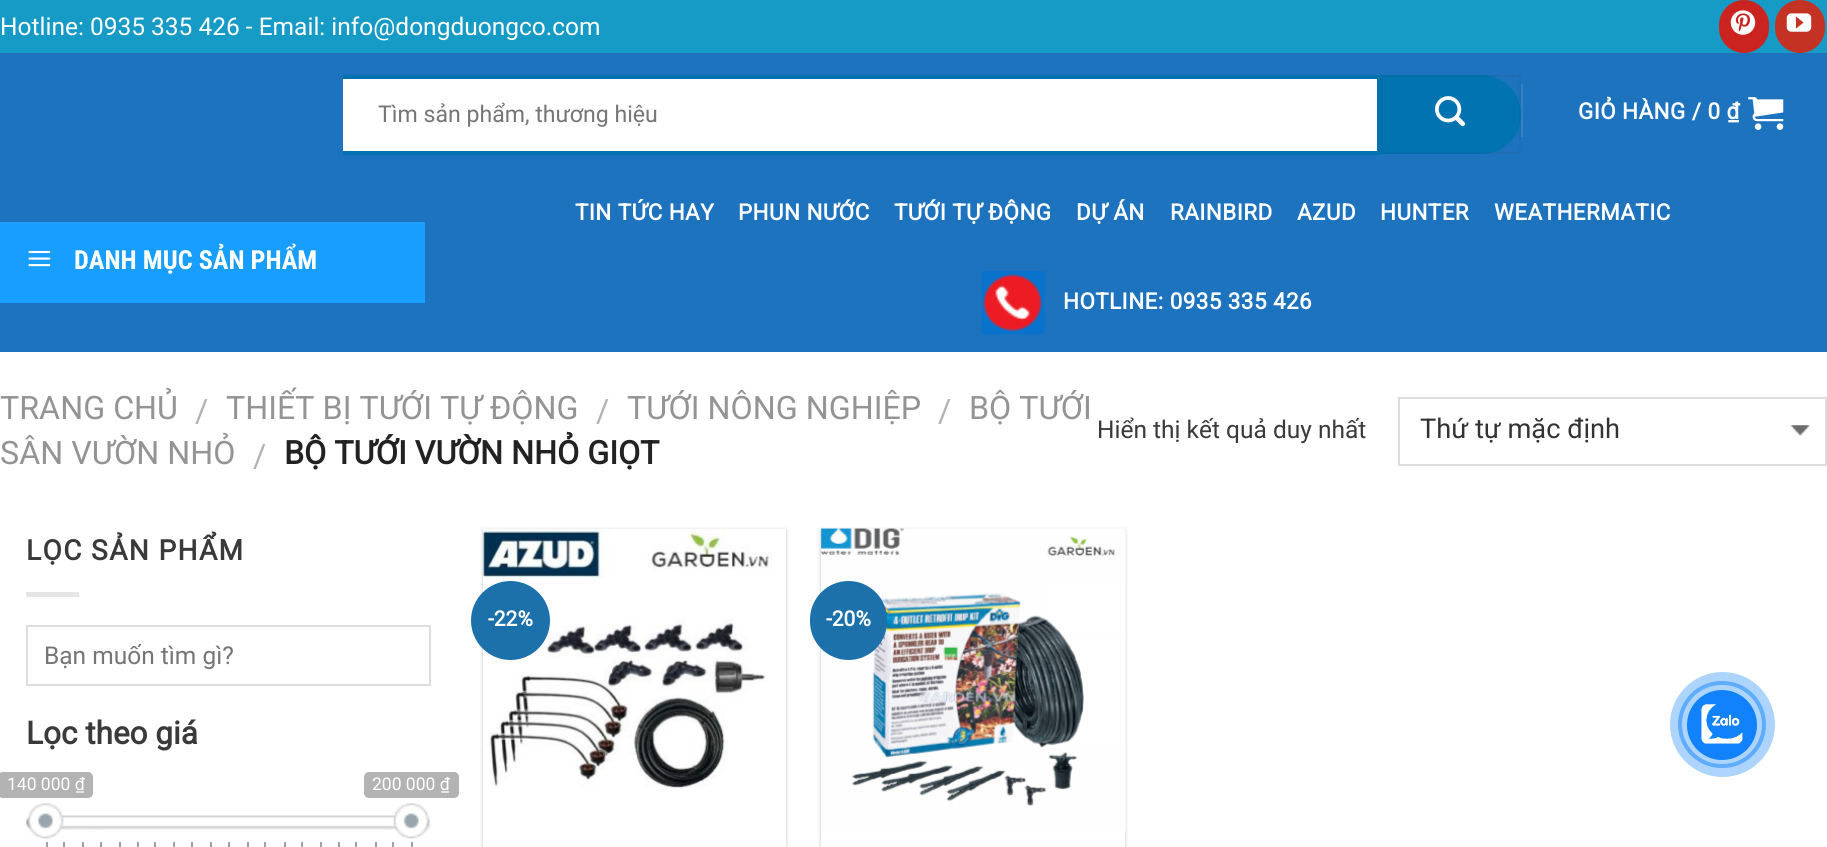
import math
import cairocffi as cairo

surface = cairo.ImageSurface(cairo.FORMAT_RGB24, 1827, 847)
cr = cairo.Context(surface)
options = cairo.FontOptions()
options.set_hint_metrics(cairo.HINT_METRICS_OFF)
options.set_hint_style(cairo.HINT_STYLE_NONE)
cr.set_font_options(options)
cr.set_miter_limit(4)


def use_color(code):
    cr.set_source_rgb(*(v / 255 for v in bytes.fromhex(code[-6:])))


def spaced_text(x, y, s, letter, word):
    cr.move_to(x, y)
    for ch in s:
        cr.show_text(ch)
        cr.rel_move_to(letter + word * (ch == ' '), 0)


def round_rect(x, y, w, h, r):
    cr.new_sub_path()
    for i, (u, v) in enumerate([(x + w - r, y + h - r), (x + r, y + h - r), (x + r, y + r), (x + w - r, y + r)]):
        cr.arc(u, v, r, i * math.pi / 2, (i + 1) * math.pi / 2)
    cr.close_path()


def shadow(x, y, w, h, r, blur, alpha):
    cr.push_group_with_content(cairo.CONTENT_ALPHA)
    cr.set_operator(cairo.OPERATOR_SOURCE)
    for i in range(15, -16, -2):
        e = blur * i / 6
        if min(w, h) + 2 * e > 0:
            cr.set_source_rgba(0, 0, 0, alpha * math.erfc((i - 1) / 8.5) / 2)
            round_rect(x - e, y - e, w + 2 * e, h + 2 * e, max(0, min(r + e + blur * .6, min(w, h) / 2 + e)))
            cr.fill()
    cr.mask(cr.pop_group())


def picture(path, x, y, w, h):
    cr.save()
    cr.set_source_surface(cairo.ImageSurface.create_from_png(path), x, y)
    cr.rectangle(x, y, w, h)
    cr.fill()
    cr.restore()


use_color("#ffffff")
cr.paint()
use_color("#1e73be")
cr.rectangle(0, 53, 1827, 299)
cr.fill()
use_color("#169ac6")
cr.rectangle(0, 0, 1827, 53)
cr.fill()
cr.select_font_face("Roboto")
cr.set_font_size(24.5)
use_color("#ffffff")
cr.move_to(0, 35)
cr.show_text("Hotline: 0935 335 426 - Email: info@dongduongco.com")
use_color("#cb2320")
round_rect(1720, 1, 48, 51, 24)
cr.fill_preserve()
cr.stroke()
picture("img1.png", 1730, 10, 26, 25)
use_color("#c33223")
round_rect(1776, 1, 48, 51, 24)
cr.fill_preserve()
cr.stroke()
picture("img2.png", 1786, 13, 26, 19)
use_color("#ffffff")
cr.rectangle(343, 79, 1034, 72)
cr.fill()
use_color("#0173b1")
cr.rectangle(343, 75, 1038, 4)
cr.fill()
cr.rectangle(1377, 75, 4, 79)
cr.fill()
cr.rectangle(343, 151, 1038, 4)
cr.fill()
cr.set_font_size(23.1)
use_color("#757575")
cr.move_to(378, 122)
cr.show_text("Tìm sản phẩm, thương hiệu")
use_color("#0173b1")
cr.new_path()
cr.move_to(1381, 75)
cr.line_to(1481.5, 75)
cr.curve_to(1503.5, 75, 1521, 92.5, 1521, 114.5)
cr.curve_to(1521, 136.5, 1503.5, 154, 1481.5, 154)
cr.line_to(1381, 154)
cr.close_path()
cr.fill()
cr.rectangle(1382, 76, 138, 77)
cr.set_source_rgba(0, 0, 0, 0.05)
cr.stroke()
picture("img3.png", 1435, 96, 30, 31)
use_color("#3581c5")
cr.rectangle(1521, 84, 2, 53)
cr.fill()
cr.select_font_face("Roboto", cairo.FONT_SLANT_NORMAL, cairo.FONT_WEIGHT_BOLD)
cr.set_font_size(22.4)
use_color("#ffffff")
spaced_text(1578, 119, "GIỎ HÀNG / 0 ₫", 0.45, 0)
picture("img4.png", 1748, 97, 36, 33)
use_color("#189eff")
cr.rectangle(0, 222, 425, 81)
cr.fill()
picture("img5.png", 28, 250, 23, 17)
cr.select_font_face("Roboto Condensed", cairo.FONT_SLANT_NORMAL, cairo.FONT_WEIGHT_BOLD)
cr.set_font_size(26.25)
use_color("#ffffff")
cr.move_to(74, 269)
cr.show_text("DANH MỤC SẢN PHẨM")
cr.select_font_face("Roboto", cairo.FONT_SLANT_NORMAL, cairo.FONT_WEIGHT_BOLD)
cr.set_font_size(22.4)
spaced_text(575, 220, "TIN TỨC HAY", 0.45, 0)
spaced_text(738, 220, "PHUN NƯỚC", 0.45, 0)
spaced_text(894, 220, "TƯỚI TỰ ĐỘNG", 0.45, 0)
spaced_text(1076, 220, "DỰ ÁN", 0.45, 0)
spaced_text(1170, 220, "RAINBIRD", 0.45, 0)
spaced_text(1297, 220, "AZUD", 0.45, 0)
spaced_text(1380, 220, "HUNTER", 0.45, 0)
spaced_text(1494, 220, "WEATHERMATIC", 0.45, 0)
picture("img6.png", 981, 271, 64, 64)
spaced_text(1063, 309, "HOTLINE: 0935 335 426", 0.45, 0)
cr.select_font_face("Roboto")
cr.set_font_size(32.25)
use_color("#949494")
cr.move_to(0, 419)
cr.show_text("TRANG CHỦ")
use_color("#b2b2b2")
cr.move_to(195, 422)
cr.show_text("/")
use_color("#949494")
cr.move_to(226, 419)
cr.show_text("THIẾT BỊ TƯỚI TỰ ĐỘNG")
use_color("#b2b2b2")
cr.move_to(596, 422)
cr.show_text("/")
use_color("#949494")
cr.move_to(627, 419)
cr.show_text("TƯỚI NÔNG NGHIỆP")
use_color("#b2b2b2")
cr.move_to(938, 422)
cr.show_text("/")
use_color("#949494")
cr.move_to(969, 419)
cr.show_text("BỘ TƯỚI")
cr.move_to(0, 464)
cr.show_text("SÂN VƯỜN NHỎ")
use_color("#b2b2b2")
cr.move_to(253, 467)
cr.show_text("/")
cr.select_font_face("Roboto", cairo.FONT_SLANT_NORMAL, cairo.FONT_WEIGHT_BOLD)
use_color("#222222")
cr.move_to(284, 464)
cr.show_text("BỘ TƯỚI VƯỜN NHỎ GIỌT")
cr.select_font_face("Roboto")
cr.set_font_size(24.5)
use_color("#3a3a3a")
cr.move_to(1097, 438)
cr.show_text("Hiển thị kết quả duy nhất")
picture("img7.png", 1790, 425, 20, 11)
cr.rectangle(1399, 398, 427, 67)
use_color("#dddddd")
cr.stroke()
cr.set_font_size(27.25)
use_color("#333333")
cr.move_to(1420, 438)
cr.show_text("Thứ tự mặc định")
cr.select_font_face("Roboto", cairo.FONT_SLANT_NORMAL, cairo.FONT_WEIGHT_BOLD)
cr.set_font_size(28)
use_color("#3a3a3a")
spaced_text(26, 560, "LỌC SẢN PHẨM", 1.4, 0)
use_color("#e6e6e6")
cr.rectangle(26, 592, 53, 5)
cr.fill()
cr.rectangle(27, 626, 403, 59)
use_color("#dddddd")
cr.stroke()
cr.select_font_face("Roboto")
cr.set_font_size(24.5)
use_color("#757575")
cr.move_to(44, 664)
cr.show_text("Bạn muốn tìm gì?")
cr.select_font_face("Roboto", cairo.FONT_SLANT_NORMAL, cairo.FONT_WEIGHT_BOLD)
cr.set_font_size(31.5)
use_color("#3a3a3a")
cr.move_to(26, 744)
cr.show_text("Lọc theo giá")
use_color("#b3b3b3")
round_rect(-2, 772, 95, 26, 5)
cr.fill()
cr.select_font_face("Roboto")
cr.set_font_size(17.5)
use_color("#ffffff")
cr.move_to(7, 790)
cr.show_text("140 000 ₫")
use_color("#b3b3b3")
round_rect(364, 772, 95, 26, 5)
cr.fill()
use_color("#ffffff")
cr.move_to(372, 790)
cr.show_text("200 000 ₫")
picture("img8.png", 26, 816, 44, 14)
picture("img9.png", 63, 827, 331, 3)
picture("img10.png", 386, 816, 45, 14)
picture("img12.png", 47, 815, 363, 15)
picture("img11.png", 27, 803, 37, 36)
picture("img13.png", 393, 803, 37, 36)
use_color("#99a4ac")
cr.rectangle(46, 842, 2, 5)
cr.fill()
cr.rectangle(63, 842, 2, 5)
cr.fill()
cr.rectangle(82, 842, 2, 5)
cr.fill()
cr.rectangle(100, 842, 2, 5)
cr.fill()
cr.rectangle(119, 842, 2, 5)
cr.fill()
cr.rectangle(137, 842, 2, 5)
cr.fill()
cr.rectangle(154, 842, 2, 5)
cr.fill()
cr.rectangle(173, 842, 2, 5)
cr.fill()
cr.rectangle(191, 842, 2, 5)
cr.fill()
cr.rectangle(210, 842, 2, 5)
cr.fill()
cr.rectangle(228, 842, 2, 5)
cr.fill()
cr.rectangle(247, 842, 2, 5)
cr.fill()
cr.rectangle(264, 842, 2, 5)
cr.fill()
cr.rectangle(284, 842, 2, 5)
cr.fill()
cr.rectangle(301, 842, 2, 5)
cr.fill()
cr.rectangle(320, 842, 2, 5)
cr.fill()
cr.rectangle(338, 842, 2, 5)
cr.fill()
cr.rectangle(355, 842, 2, 5)
cr.fill()
cr.rectangle(375, 842, 2, 5)
cr.fill()
cr.rectangle(392, 842, 2, 5)
cr.fill()
cr.rectangle(411, 842, 2, 5)
cr.fill()
use_color("#000000")
shadow(483, 530, 303, 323, 0, 2, 0.24)
use_color("#ffffff")
cr.rectangle(483, 529, 303, 318)
cr.fill()
picture("img14.png", 483, 529, 289, 260)
use_color("#1d71ab")
cr.arc(510.5, 620.5, 39.5, 0, 2 * math.pi)
cr.fill()
cr.select_font_face("Roboto", cairo.FONT_SLANT_NORMAL, cairo.FONT_WEIGHT_BOLD)
cr.set_font_size(21)
use_color("#ffffff")
cr.move_to(488, 626)
cr.show_text("-22%")
cr.save()
cr.set_fill_rule(cairo.FILL_RULE_EVEN_ODD)
cr.new_path()
cr.move_to(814, 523)
cr.line_to(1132, 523)
cr.line_to(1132, 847)
cr.line_to(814, 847)
cr.close_path()
cr.move_to(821, 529)
cr.line_to(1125, 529)
cr.line_to(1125, 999)
cr.line_to(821, 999)
cr.close_path()
cr.clip()
use_color("#000000")
shadow(821, 530, 304, 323, 0, 2, 0.24)
cr.restore()
picture("img15.png", 821, 528, 305, 303)
use_color("#1d71ab")
round_rect(810, 581, 77, 79, 38.5)
cr.fill()
use_color("#ffffff")
cr.move_to(826, 626)
cr.show_text("-20%")
round_rect(1680, 683, 84, 83, 41.5)
use_color("#88c1fe")
cr.set_line_width(4)
cr.stroke()
cr.set_source_rgba(0.067, 0.51, 0.988, 0.34)
cr.arc(1722.5, 724.5, 52.5, 0, 2 * math.pi)
cr.fill()
use_color("#1182fc")
cr.arc(1722, 725, 35, 0, 2 * math.pi)
cr.fill()
picture("img16.png", 1701, 704, 42, 40)
surface.write_to_png("result.png")
